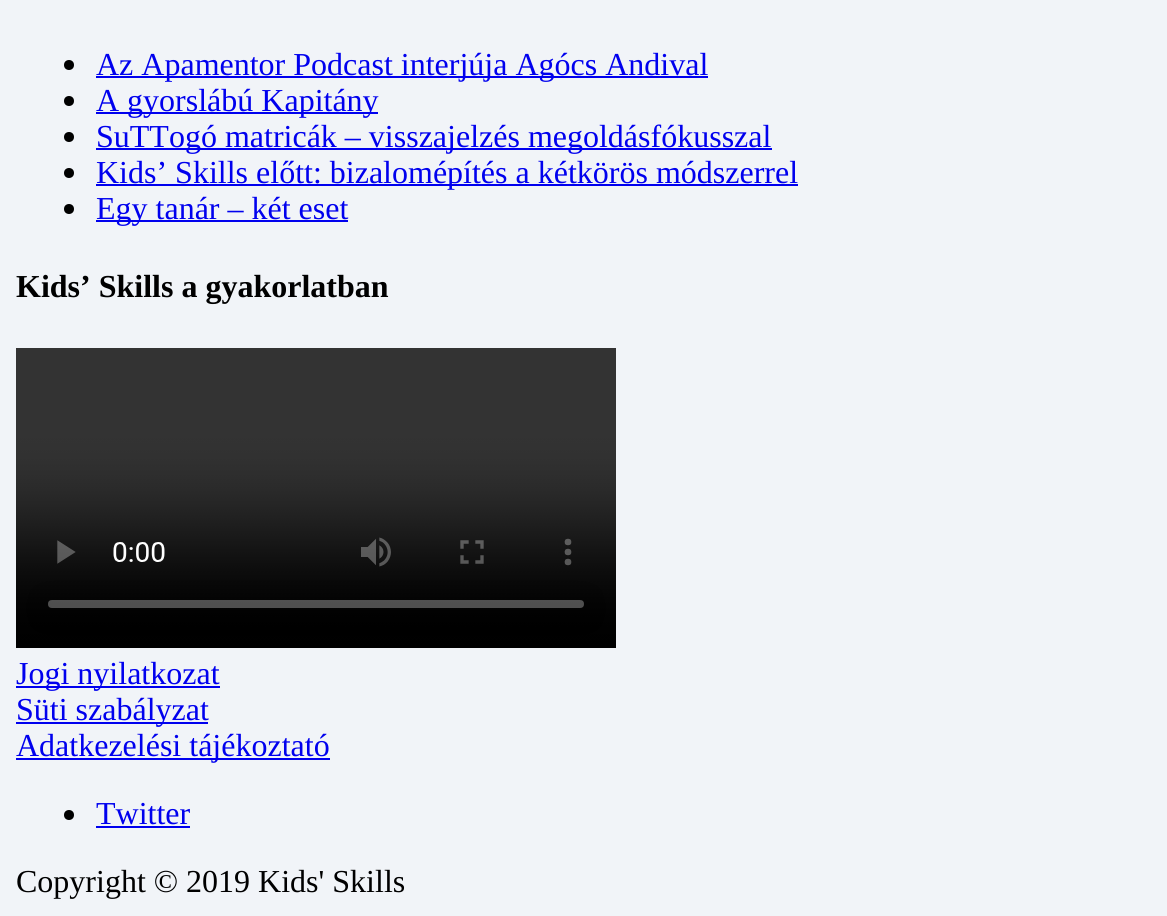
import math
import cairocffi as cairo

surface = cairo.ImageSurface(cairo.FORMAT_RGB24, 1167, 916)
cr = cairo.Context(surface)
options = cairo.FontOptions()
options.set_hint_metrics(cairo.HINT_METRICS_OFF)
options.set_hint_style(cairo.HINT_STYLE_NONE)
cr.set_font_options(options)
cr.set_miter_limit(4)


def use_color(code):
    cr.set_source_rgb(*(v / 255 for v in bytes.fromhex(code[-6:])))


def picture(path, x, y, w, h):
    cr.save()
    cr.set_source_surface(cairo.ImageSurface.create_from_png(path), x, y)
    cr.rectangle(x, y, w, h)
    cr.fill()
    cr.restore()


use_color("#f1f4f8")
cr.paint()
use_color("#000000")
cr.arc(69, 65, 5, 0, 2 * math.pi)
cr.fill()
use_color("#0000ee")
cr.rectangle(96, 76, 612, 2)
cr.fill()
cr.select_font_face("Liberation Serif")
cr.set_font_size(32)
cr.move_to(96, 75)
cr.show_text("Az Apamentor Podcast interjúja Agócs Andival")
use_color("#000000")
cr.new_path()
cr.arc(69, 101, 5, 0, 2 * math.pi)
cr.fill()
use_color("#0000ee")
cr.rectangle(96, 112, 282, 2)
cr.fill()
cr.move_to(96, 111)
cr.show_text("A gyorslábú Kapitány")
use_color("#000000")
cr.new_path()
cr.arc(69, 137, 5, 0, 2 * math.pi)
cr.fill()
use_color("#0000ee")
cr.rectangle(96, 148, 676, 2)
cr.fill()
cr.move_to(96, 147)
cr.show_text("SuTTogó matricák – visszajelzés megoldásfókusszal")
use_color("#000000")
cr.new_path()
cr.arc(69, 173, 5, 0, 2 * math.pi)
cr.fill()
use_color("#0000ee")
cr.rectangle(96, 184, 702, 2)
cr.fill()
cr.move_to(96, 183)
cr.show_text("Kids’ Skills előtt: bizalomépítés a kétkörös módszerrel")
use_color("#000000")
cr.new_path()
cr.arc(69, 209, 5, 0, 2 * math.pi)
cr.fill()
use_color("#0000ee")
cr.rectangle(96, 220, 252, 2)
cr.fill()
cr.move_to(96, 219)
cr.show_text("Egy tanár – két eset")
cr.select_font_face("Liberation Serif", cairo.FONT_SLANT_NORMAL, cairo.FONT_WEIGHT_BOLD)
use_color("#000000")
cr.move_to(16, 297)
cr.show_text("Kids’ Skills a gyakorlatban")
picture("img1.png", 16, 348, 600, 300)
use_color("#0000ee")
cr.rectangle(16, 686, 204, 2)
cr.fill()
cr.select_font_face("Liberation Serif")
cr.move_to(16, 684)
cr.show_text("Jogi nyilatkozat")
cr.rectangle(16, 722, 192, 2)
cr.fill()
cr.move_to(16, 720)
cr.show_text("Süti szabályzat")
cr.rectangle(16, 758, 314, 2)
cr.fill()
cr.move_to(16, 756)
cr.show_text("Adatkezelési tájékoztató")
use_color("#000000")
cr.new_path()
cr.arc(69, 815, 5, 0, 2 * math.pi)
cr.fill()
use_color("#0000ee")
cr.move_to(96, 824)
cr.show_text("Twitter")
cr.rectangle(96, 826, 94, 2)
cr.fill()
use_color("#000000")
cr.move_to(16, 892)
cr.show_text("Copyright © 2019 Kids' Skills")
surface.write_to_png("result.png")
